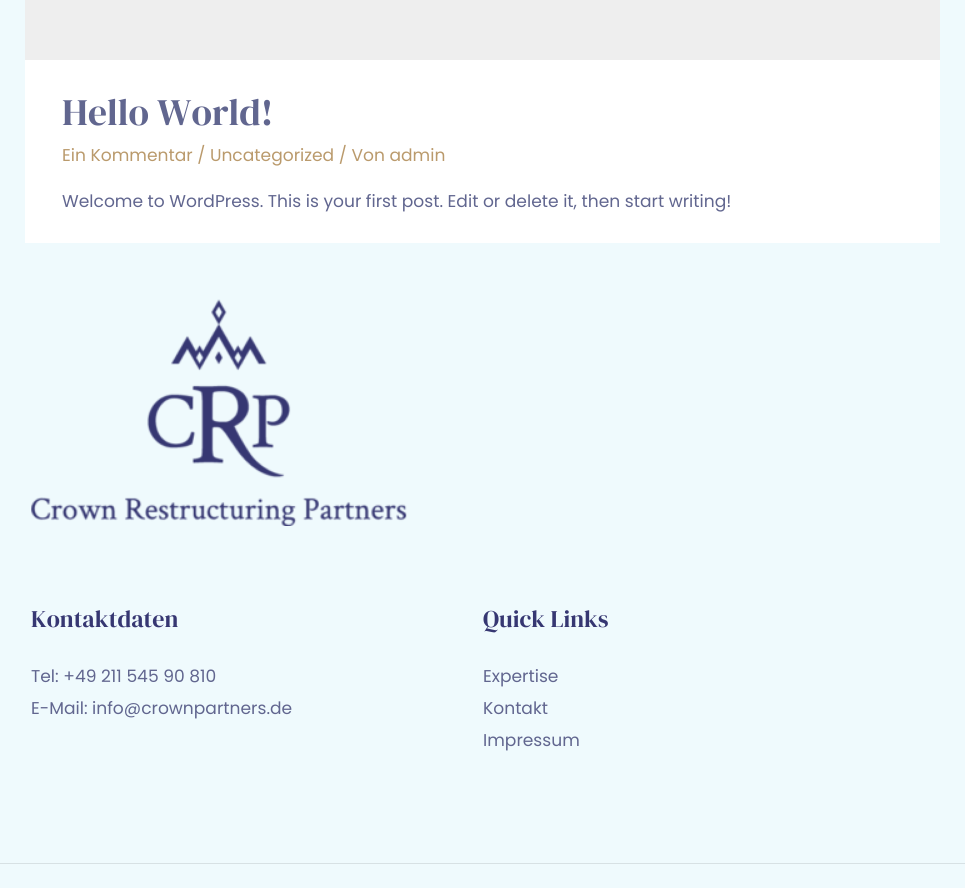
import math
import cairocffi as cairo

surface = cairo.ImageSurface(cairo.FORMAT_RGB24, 965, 888)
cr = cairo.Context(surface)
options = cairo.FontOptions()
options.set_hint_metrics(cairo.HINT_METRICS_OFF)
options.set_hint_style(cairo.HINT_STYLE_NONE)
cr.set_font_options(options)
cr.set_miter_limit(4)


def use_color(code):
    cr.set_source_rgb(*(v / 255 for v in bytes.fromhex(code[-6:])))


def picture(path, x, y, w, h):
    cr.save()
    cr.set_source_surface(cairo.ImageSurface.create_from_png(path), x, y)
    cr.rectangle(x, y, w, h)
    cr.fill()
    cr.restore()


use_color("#effafd")
cr.paint()
use_color("#eeeeee")
cr.rectangle(25, 0, 915, 60)
cr.fill()
use_color("#ffffff")
cr.rectangle(25, 60, 915, 183)
cr.fill()
cr.select_font_face("DM Serif Display")
cr.set_font_size(37.5)
use_color("#61668f")
cr.move_to(62, 125)
cr.show_text("Hello World!")
cr.select_font_face("Poppins")
cr.set_font_size(17.1)
use_color("#ba9a6c")
cr.move_to(62, 161)
cr.show_text("Ein Kommentar / Uncategorized / Von admin")
use_color("#61668f")
cr.move_to(62, 207)
cr.show_text("Welcome to WordPress. This is your first post. Edit or delete it, then start writing!")
picture("img1.png", 31, 299, 376, 227)
cr.select_font_face("DM Serif Display")
cr.set_font_size(24)
use_color("#363772")
cr.move_to(31, 627)
cr.show_text("Kontaktdaten")
cr.select_font_face("Poppins")
cr.set_font_size(17.1)
use_color("#61668f")
cr.move_to(31, 682)
cr.show_text("Tel: +49 211 545 90 810")
cr.move_to(31, 714)
cr.show_text("E-Mail: info@crownpartners.de")
cr.select_font_face("DM Serif Display")
cr.set_font_size(24)
use_color("#363772")
cr.move_to(483, 627)
cr.show_text("Quick Links")
cr.select_font_face("Poppins")
cr.set_font_size(17.1)
use_color("#61668f")
cr.move_to(483, 682)
cr.show_text("Expertise")
cr.move_to(483, 714)
cr.show_text("Kontakt")
cr.move_to(483, 746)
cr.show_text("Impressum")
use_color("#d7e1e4")
cr.rectangle(0, 863, 965, 1)
cr.fill()
surface.write_to_png("result.png")
